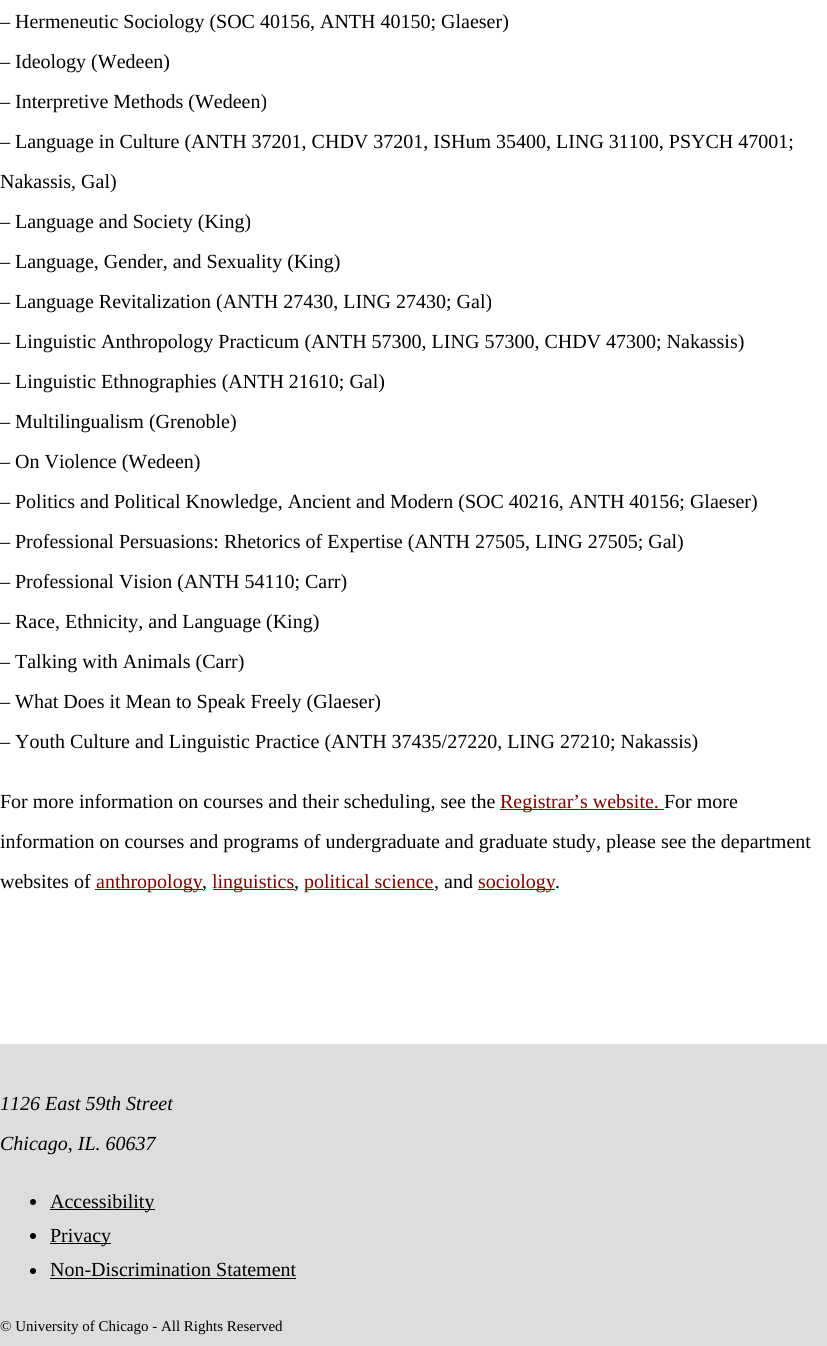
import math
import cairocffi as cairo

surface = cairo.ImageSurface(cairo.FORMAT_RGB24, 827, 1346)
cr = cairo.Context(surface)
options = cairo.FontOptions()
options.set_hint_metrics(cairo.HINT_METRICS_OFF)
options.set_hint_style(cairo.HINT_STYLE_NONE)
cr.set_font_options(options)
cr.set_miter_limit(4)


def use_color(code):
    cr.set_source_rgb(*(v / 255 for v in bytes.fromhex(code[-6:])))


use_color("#ffffff")
cr.paint()
cr.select_font_face("Liberation Serif")
cr.set_font_size(20)
use_color("#000000")
cr.move_to(0, 28)
cr.show_text("– Hermeneutic Sociology (SOC 40156, ANTH 40150; Glaeser)")
cr.move_to(0, 68)
cr.show_text("– Ideology (Wedeen)")
cr.move_to(0, 108)
cr.show_text("– Interpretive Methods (Wedeen)")
cr.move_to(0, 148)
cr.show_text("– Language in Culture (ANTH 37201, CHDV 37201, ISHum 35400, LING 31100, PSYCH 47001;")
cr.move_to(0, 188)
cr.show_text("Nakassis, Gal)")
cr.move_to(0, 228)
cr.show_text("– Language and Society (King)")
cr.move_to(0, 268)
cr.show_text("– Language, Gender, and Sexuality (King)")
cr.move_to(0, 308)
cr.show_text("– Language Revitalization (ANTH 27430, LING 27430; Gal)")
cr.move_to(0, 348)
cr.show_text("– Linguistic Anthropology Practicum (ANTH 57300, LING 57300, CHDV 47300; Nakassis)")
cr.move_to(0, 388)
cr.show_text("– Linguistic Ethnographies (ANTH 21610; Gal)")
cr.move_to(0, 428)
cr.show_text("– Multilingualism (Grenoble)")
cr.move_to(0, 468)
cr.show_text("– On Violence (Wedeen)")
cr.move_to(0, 508)
cr.show_text("– Politics and Political Knowledge, Ancient and Modern (SOC 40216, ANTH 40156; Glaeser)")
cr.move_to(0, 548)
cr.show_text("– Professional Persuasions: Rhetorics of Expertise (ANTH 27505, LING 27505; Gal)")
cr.move_to(0, 588)
cr.show_text("– Professional Vision (ANTH 54110; Carr)")
cr.move_to(0, 628)
cr.show_text("– Race, Ethnicity, and Language (King)")
cr.move_to(0, 668)
cr.show_text("– Talking with Animals (Carr)")
cr.move_to(0, 708)
cr.show_text("– What Does it Mean to Speak Freely (Glaeser)")
cr.move_to(0, 748)
cr.show_text("– Youth Culture and Linguistic Practice (ANTH 37435/27220, LING 27210; Nakassis)")
cr.move_to(0, 808)
cr.show_text("For more information on courses and their scheduling, see the")
use_color("#800000")
cr.rectangle(500, 809, 164, 1)
cr.fill()
cr.move_to(500, 808)
cr.show_text("Registrar’s website.")
use_color("#000000")
cr.move_to(664, 808)
cr.show_text("For more")
cr.move_to(0, 848)
cr.show_text("information on courses and programs of undergraduate and graduate study, please see the department")
cr.move_to(0, 888)
cr.show_text("websites of")
use_color("#800000")
cr.rectangle(95, 889, 108, 1)
cr.fill()
cr.move_to(96, 888)
cr.show_text("anthropology")
use_color("#000000")
cr.move_to(202, 888)
cr.show_text(",")
use_color("#800000")
cr.rectangle(213, 889, 82, 1)
cr.fill()
cr.move_to(212, 888)
cr.show_text("linguistics")
use_color("#000000")
cr.move_to(294, 888)
cr.show_text(",")
use_color("#800000")
cr.rectangle(305, 889, 129, 1)
cr.fill()
cr.move_to(304, 888)
cr.show_text("political science")
use_color("#000000")
cr.move_to(434, 888)
cr.show_text(", and")
use_color("#800000")
cr.rectangle(478, 889, 77, 1)
cr.fill()
cr.move_to(478, 888)
cr.show_text("sociology")
use_color("#000000")
cr.move_to(555, 888)
cr.show_text(".")
use_color("#dddddd")
cr.rectangle(0, 1044, 827, 302)
cr.fill()
cr.select_font_face("Liberation Serif", cairo.FONT_SLANT_ITALIC)
use_color("#000000")
cr.move_to(0, 1110)
cr.show_text("1126 East 59th Street")
cr.move_to(0, 1150)
cr.show_text("Chicago, IL. 60637")
cr.new_path()
cr.arc(33, 1202, 3, 0, 2 * math.pi)
cr.fill()
cr.rectangle(50, 1209, 105, 1)
cr.fill()
cr.select_font_face("Liberation Serif")
cr.move_to(50, 1208)
cr.show_text("Accessibility")
cr.new_path()
cr.arc(33, 1236, 3, 0, 2 * math.pi)
cr.fill()
cr.rectangle(50, 1243, 61, 1)
cr.fill()
cr.move_to(50, 1242)
cr.show_text("Privacy")
cr.new_path()
cr.arc(33, 1271, 3, 0, 2 * math.pi)
cr.fill()
cr.move_to(50, 1276)
cr.show_text("Non-Discrimination Statement")
cr.rectangle(50, 1278, 246, 1)
cr.fill()
cr.set_font_size(15)
cr.move_to(0, 1331)
cr.show_text("© University of Chicago - All Rights Reserved")
surface.write_to_png("result.png")
